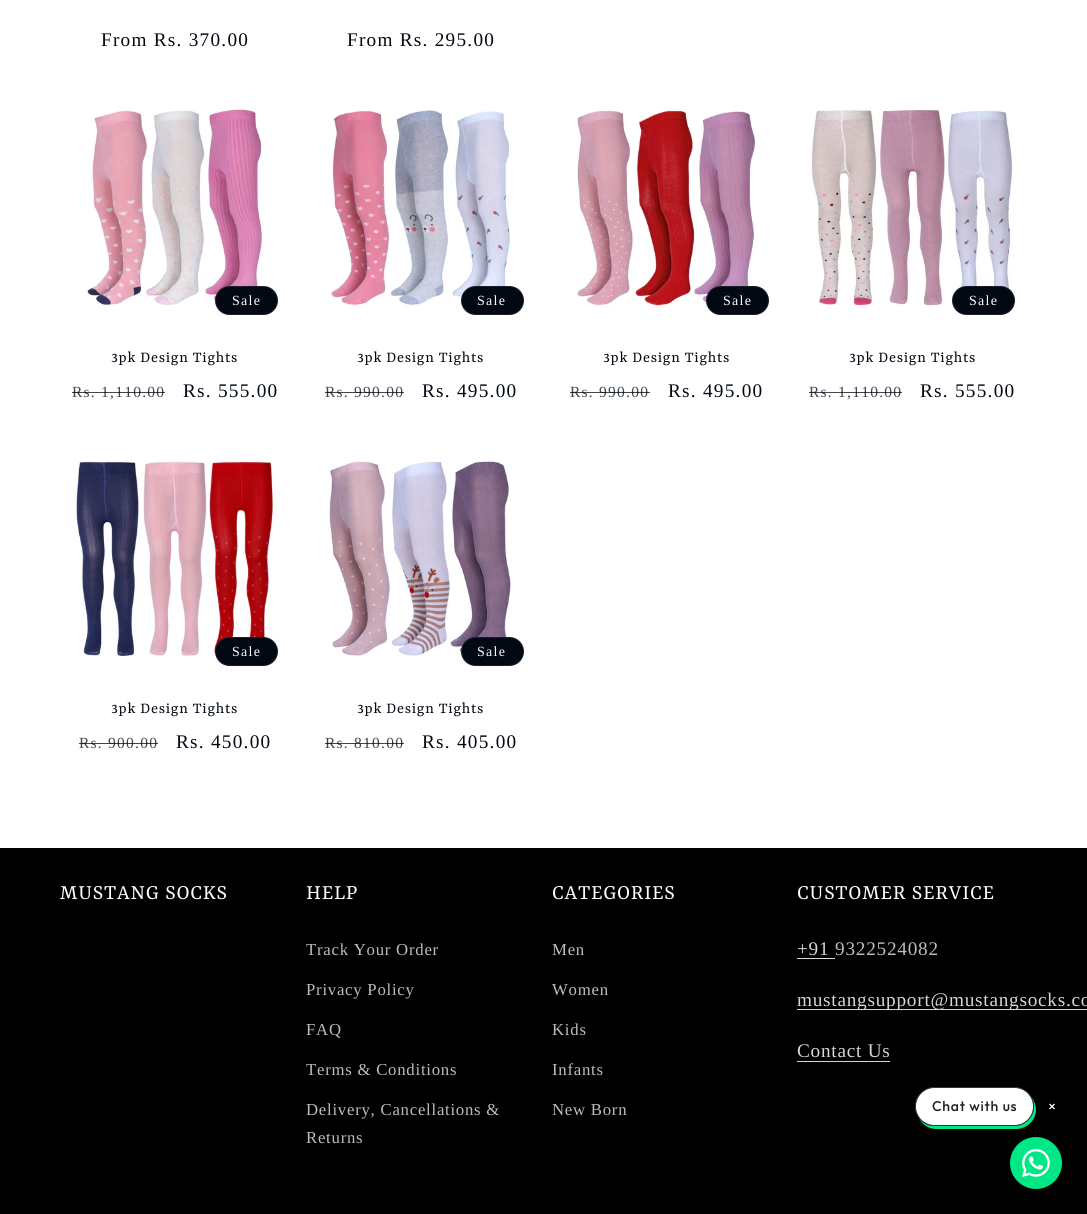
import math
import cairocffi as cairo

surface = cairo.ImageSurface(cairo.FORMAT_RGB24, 1087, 1214)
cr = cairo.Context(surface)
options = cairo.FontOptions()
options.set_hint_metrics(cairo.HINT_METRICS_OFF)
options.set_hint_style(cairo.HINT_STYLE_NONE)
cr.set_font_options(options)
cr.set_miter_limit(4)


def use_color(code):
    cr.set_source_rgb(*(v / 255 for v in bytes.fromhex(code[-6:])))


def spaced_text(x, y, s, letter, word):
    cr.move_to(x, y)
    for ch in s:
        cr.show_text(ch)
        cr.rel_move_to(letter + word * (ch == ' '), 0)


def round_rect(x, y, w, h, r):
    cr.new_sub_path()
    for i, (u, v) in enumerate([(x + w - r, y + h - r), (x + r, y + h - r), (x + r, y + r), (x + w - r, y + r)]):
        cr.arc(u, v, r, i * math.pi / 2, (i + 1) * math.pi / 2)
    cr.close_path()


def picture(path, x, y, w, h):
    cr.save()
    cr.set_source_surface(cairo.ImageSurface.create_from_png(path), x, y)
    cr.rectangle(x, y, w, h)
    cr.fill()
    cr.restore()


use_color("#ffffff")
cr.paint()
cr.select_font_face("Liberation Serif")
cr.set_font_size(19.25)
use_color("#020912")
spaced_text(101, 46, "From Rs. 370.00", 1.25, 0)
spaced_text(347, 46, "From Rs. 295.00", 1.25, 0)
picture("img1.png", 86, 108, 179, 198)
round_rect(215, 286, 63, 29, 14.5)
cr.fill()
round_rect(215.5, 286.5, 62, 28, 14)
cr.set_source_rgba(0.988, 0.988, 0.988, 0.1)
cr.set_line_width(1)
cr.stroke()
cr.set_font_size(14)
use_color("#fcfcfc")
spaced_text(232, 305, "Sale", 1.25, 0)
cr.select_font_face("Rasa")
cr.set_font_size(16.25)
use_color("#020912")
spaced_text(111, 362, "3pk Design Tights", 0.75, 0)
cr.select_font_face("Liberation Serif")
cr.set_font_size(15.5)
use_color("#41474d")
spaced_text(72, 397, "Rs. 1,110.00", 1.25, 0)
cr.set_source_rgba(0.008, 0.035, 0.071, 0.75)
cr.rectangle(72, 392, 93, 1)
cr.fill()
cr.set_font_size(19.25)
use_color("#020912")
spaced_text(183, 397, "Rs. 555.00", 1.25, 0)
picture("img2.png", 330, 110, 181, 197)
round_rect(461, 286, 63, 29, 14.5)
cr.fill()
round_rect(461.5, 286.5, 62, 28, 14)
cr.set_source_rgba(0.988, 0.988, 0.988, 0.1)
cr.stroke()
cr.set_font_size(14)
use_color("#fcfcfc")
spaced_text(477, 305, "Sale", 1.25, 0)
cr.select_font_face("Rasa")
cr.set_font_size(16.25)
use_color("#020912")
spaced_text(357, 362, "3pk Design Tights", 0.75, 0)
cr.select_font_face("Liberation Serif")
cr.set_font_size(15.5)
use_color("#41474d")
spaced_text(325, 397, "Rs. 990.00", 1.25, 0)
cr.set_source_rgba(0.008, 0.035, 0.071, 0.75)
cr.rectangle(325, 392, 79, 1)
cr.fill()
cr.set_font_size(19.25)
use_color("#020912")
spaced_text(422, 397, "Rs. 495.00", 1.25, 0)
picture("img3.png", 577, 110, 179, 198)
round_rect(706, 286, 63, 29, 14.5)
cr.fill()
round_rect(706.5, 286.5, 62, 28, 14)
cr.set_source_rgba(0.988, 0.988, 0.988, 0.1)
cr.stroke()
cr.set_font_size(14)
use_color("#fcfcfc")
spaced_text(723, 305, "Sale", 1.25, 0)
cr.select_font_face("Rasa")
cr.set_font_size(16.25)
use_color("#020912")
spaced_text(603, 362, "3pk Design Tights", 0.75, 0)
cr.select_font_face("Liberation Serif")
cr.set_font_size(15.5)
use_color("#41474d")
spaced_text(570, 397, "Rs. 990.00", 1.25, 0)
cr.set_source_rgba(0.008, 0.035, 0.071, 0.75)
cr.rectangle(570, 392, 80, 1)
cr.fill()
cr.set_font_size(19.25)
use_color("#020912")
spaced_text(668, 397, "Rs. 495.00", 1.25, 0)
picture("img4.png", 811, 108, 202, 199)
round_rect(952, 286, 63, 29, 14.5)
cr.fill()
round_rect(952.5, 286.5, 62, 28, 14)
cr.set_source_rgba(0.988, 0.988, 0.988, 0.1)
cr.stroke()
cr.set_font_size(14)
use_color("#fcfcfc")
spaced_text(969, 305, "Sale", 1.25, 0)
cr.select_font_face("Rasa")
cr.set_font_size(16.25)
use_color("#020912")
spaced_text(849, 362, "3pk Design Tights", 0.75, 0)
cr.select_font_face("Liberation Serif")
cr.set_font_size(15.5)
use_color("#41474d")
spaced_text(809, 397, "Rs. 1,110.00", 1.25, 0)
cr.set_source_rgba(0.008, 0.035, 0.071, 0.75)
cr.rectangle(809, 392, 93, 1)
cr.fill()
cr.set_font_size(19.25)
use_color("#020912")
spaced_text(920, 397, "Rs. 555.00", 1.25, 0)
picture("img5.png", 75, 461, 200, 197)
round_rect(215, 637, 63, 29, 14.5)
cr.fill()
round_rect(215.5, 637.5, 62, 28, 14)
cr.set_source_rgba(0.988, 0.988, 0.988, 0.1)
cr.stroke()
cr.set_font_size(14)
use_color("#fcfcfc")
spaced_text(232, 656, "Sale", 1.25, 0)
cr.select_font_face("Rasa")
cr.set_font_size(16.25)
use_color("#020912")
spaced_text(111, 713, "3pk Design Tights", 0.75, 0)
cr.select_font_face("Liberation Serif")
cr.set_font_size(15.5)
use_color("#41474d")
spaced_text(79, 748, "Rs. 900.00", 1.25, 0)
cr.set_source_rgba(0.008, 0.035, 0.071, 0.75)
cr.rectangle(79, 743, 79, 1)
cr.fill()
cr.set_font_size(19.25)
use_color("#020912")
spaced_text(176, 748, "Rs. 450.00", 1.25, 0)
picture("img6.png", 328, 461, 183, 198)
round_rect(461, 637, 63, 29, 14.5)
cr.fill()
round_rect(461.5, 637.5, 62, 28, 14)
cr.set_source_rgba(0.988, 0.988, 0.988, 0.1)
cr.stroke()
cr.set_font_size(14)
use_color("#fcfcfc")
spaced_text(477, 656, "Sale", 1.25, 0)
cr.select_font_face("Rasa")
cr.set_font_size(16.25)
use_color("#020912")
spaced_text(357, 713, "3pk Design Tights", 0.75, 0)
cr.select_font_face("Liberation Serif")
cr.set_font_size(15.5)
use_color("#41474d")
spaced_text(325, 748, "Rs. 810.00", 1.25, 0)
cr.set_source_rgba(0.008, 0.035, 0.071, 0.75)
cr.rectangle(325, 743, 79, 1)
cr.fill()
cr.set_font_size(19.25)
use_color("#020912")
spaced_text(422, 748, "Rs. 405.00", 1.25, 0)
use_color("#000000")
cr.rectangle(0, 848, 1087, 366)
cr.fill()
cr.select_font_face("Rasa")
cr.set_font_size(22.5)
use_color("#fcfcfc")
spaced_text(60, 899, "MUSTANG SOCKS", 0.75, 0)
spaced_text(306, 899, "HELP", 0.75, 0)
cr.select_font_face("Liberation Serif")
cr.set_font_size(16.75)
use_color("#bdbdbd")
spaced_text(306, 955, "Track Your Order", 0.75, 0)
spaced_text(306, 995, "Privacy Policy", 0.75, 0)
spaced_text(306, 1035, "FAQ", 0.75, 0)
spaced_text(306, 1075, "Terms & Conditions", 0.75, 0)
spaced_text(306, 1115, "Delivery, Cancellations &", 0.75, 0)
spaced_text(306, 1143, "Returns", 0.75, 0)
cr.select_font_face("Rasa")
cr.set_font_size(22.5)
use_color("#fcfcfc")
spaced_text(552, 899, "CATEGORIES", 0.75, 0)
cr.select_font_face("Liberation Serif")
cr.set_font_size(16.75)
use_color("#bdbdbd")
spaced_text(552, 955, "Men", 0.75, 0)
spaced_text(552, 995, "Women", 0.75, 0)
spaced_text(552, 1035, "Kids", 0.75, 0)
spaced_text(552, 1075, "Infants", 0.75, 0)
spaced_text(552, 1115, "New Born", 0.75, 0)
cr.select_font_face("Rasa")
cr.set_font_size(22.5)
use_color("#fcfcfc")
spaced_text(797, 899, "CUSTOMER SERVICE", 0.75, 0)
cr.select_font_face("Liberation Serif")
cr.set_font_size(19.25)
use_color("#d6d6d6")
spaced_text(797, 955, "+91", 0.75, 0)
cr.rectangle(797, 958, 38, 1)
cr.fill()
use_color("#bdbdbd")
spaced_text(835, 955, "9322524082", 0.75, 0)
use_color("#d6d6d6")
cr.rectangle(797, 1009, 290, 1)
cr.fill()
spaced_text(797, 1006, "mustangsupport@mustangsocks.co", 0.75, 0)
spaced_text(797, 1057, "Contact Us", 0.75, 0)
cr.rectangle(797, 1061, 93, 1)
cr.fill()
use_color("#00e785")
cr.new_path()
cr.move_to(919, 1119)
cr.curve_to(923, 1125, 929, 1129, 936, 1129)
cr.line_to(1016, 1129)
cr.curve_to(1027, 1129, 1036, 1120, 1036, 1110)
cr.curve_to(1036, 1105, 1034, 1101, 1032, 1097)
cr.curve_to(1033, 1100, 1034, 1103, 1034, 1106)
cr.curve_to(1034, 1117, 1025, 1126, 1014, 1126)
cr.line_to(934, 1126)
cr.curve_to(928, 1126, 923, 1123, 919, 1119)
cr.close_path()
cr.fill()
use_color("#ffffff")
round_rect(915.5, 1087.5, 118, 38, 19)
cr.fill_preserve()
use_color("#363636")
cr.stroke()
cr.select_font_face("Outfit Medium")
cr.set_font_size(14)
use_color("#202020")
spaced_text(932, 1111, "Chat with us", 0.75, 0)
cr.new_path()
cr.move_to(1049.5, 1104)
cr.line_to(1054.5, 1109)
cr.move_to(1049.5, 1109)
cr.line_to(1054.5, 1104)
use_color("#ffffff")
cr.set_line_width(1.3)
cr.stroke()
use_color("#00e785")
cr.arc(1036, 1163, 26, 0, 2 * math.pi)
cr.fill()
picture("img7.png", 1022, 1149, 28, 28)
surface.write_to_png("result.png")
